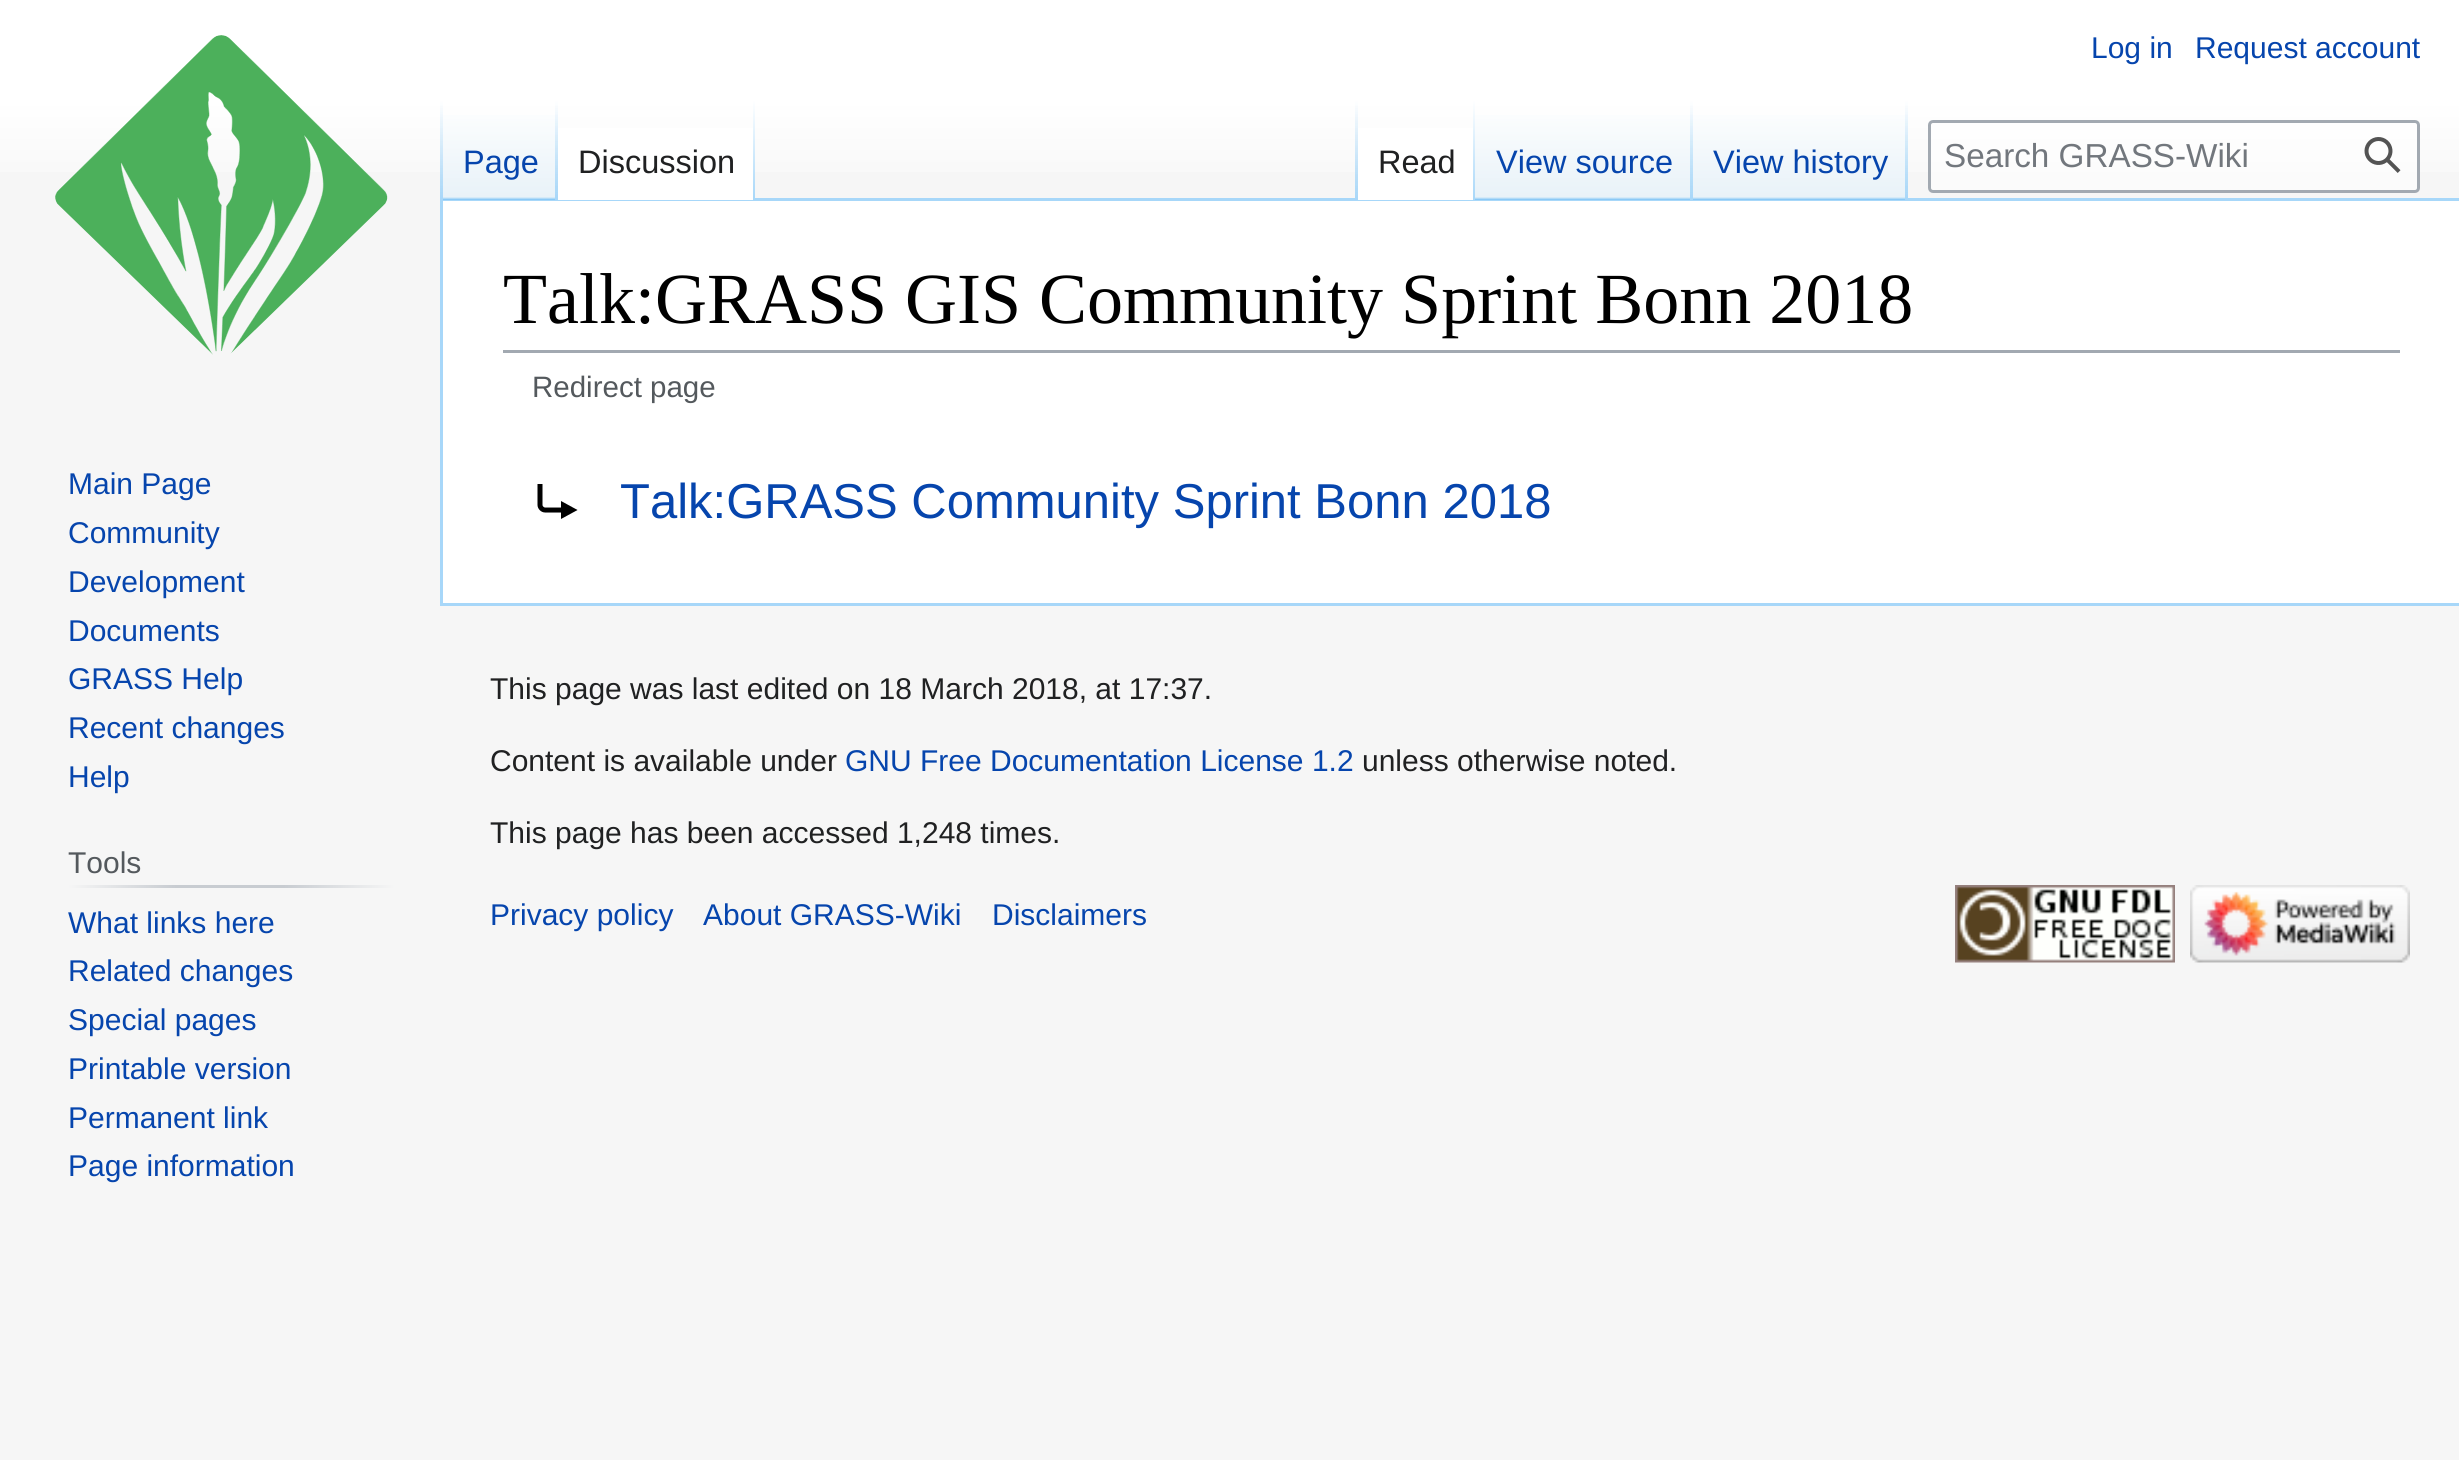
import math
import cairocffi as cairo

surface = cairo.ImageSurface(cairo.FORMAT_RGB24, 2459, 1460)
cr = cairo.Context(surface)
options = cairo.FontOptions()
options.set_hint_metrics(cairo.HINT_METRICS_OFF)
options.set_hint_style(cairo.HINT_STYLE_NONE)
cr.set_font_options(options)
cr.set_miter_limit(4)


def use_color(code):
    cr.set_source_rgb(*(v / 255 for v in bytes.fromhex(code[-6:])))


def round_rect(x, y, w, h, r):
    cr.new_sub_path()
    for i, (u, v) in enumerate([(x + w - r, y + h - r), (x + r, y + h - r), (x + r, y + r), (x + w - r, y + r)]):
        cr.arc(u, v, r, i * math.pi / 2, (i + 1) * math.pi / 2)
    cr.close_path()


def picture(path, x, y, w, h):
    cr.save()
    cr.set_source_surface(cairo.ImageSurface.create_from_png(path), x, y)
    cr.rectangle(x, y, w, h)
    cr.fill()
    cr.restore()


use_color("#f6f6f6")
cr.paint()
gradient = cairo.LinearGradient(1230, 0, 1230, 200)
gradient.add_color_stop_rgba(0.5, 1, 1, 1, 1)
gradient.add_color_stop_rgba(1, 0.965, 0.965, 0.965, 1)
cr.set_source(gradient)
cr.rectangle(0, 0, 2459, 172)
cr.fill()
cr.select_font_face("Liberation Sans")
cr.set_font_size(30)
use_color("#0645ad")
cr.move_to(2091, 58)
cr.show_text("Log in")
cr.move_to(2195, 58)
cr.show_text("Request account")
use_color("#a7d7f9")
cr.rectangle(440, 198, 2019, 3)
cr.fill()
cr.rectangle(440, 603, 2019, 3)
cr.fill()
cr.rectangle(440, 198, 3, 407)
cr.fill()
gradient = cairo.LinearGradient(441, 100, 441, 200)
gradient.add_color_stop_rgba(0, 0.655, 0.843, 0.976, 0)
gradient.add_color_stop_rgba(1, 0.655, 0.843, 0.976, 1)
cr.set_source(gradient)
cr.rectangle(440, 100, 3, 100)
cr.fill()
gradient = cairo.LinearGradient(500, 200, 500, 100)
gradient.add_color_stop_rgba(0, 0.467, 0.757, 0.965, 1)
gradient.add_color_stop_rgba(0.03, 0.91, 0.949, 0.973, 1)
gradient.add_color_stop_rgba(1, 1, 1, 1, 1)
cr.set_source(gradient)
cr.rectangle(443, 115, 115, 85)
cr.fill()
gradient = cairo.LinearGradient(556, 100, 556, 200)
gradient.add_color_stop_rgba(0, 0.655, 0.843, 0.976, 0)
gradient.add_color_stop_rgba(1, 0.655, 0.843, 0.976, 1)
cr.set_source(gradient)
cr.rectangle(555, 100, 3, 100)
cr.fill()
cr.set_font_size(32.5)
use_color("#0645ad")
cr.move_to(463, 173)
cr.show_text("Page")
use_color("#ffffff")
cr.rectangle(558, 128, 195, 72)
cr.fill()
gradient = cairo.LinearGradient(754, 100, 754, 200)
gradient.add_color_stop_rgba(0, 1, 1, 1, 1)
gradient.add_color_stop_rgba(1, 0.655, 0.843, 0.976, 1)
cr.set_source(gradient)
cr.rectangle(753, 100, 2, 100)
cr.fill()
use_color("#202122")
cr.move_to(578, 173)
cr.show_text("Discussion")
gradient = cairo.LinearGradient(1356, 100, 1356, 200)
gradient.add_color_stop_rgba(0, 0.655, 0.843, 0.976, 0)
gradient.add_color_stop_rgba(1, 0.655, 0.843, 0.976, 1)
cr.set_source(gradient)
cr.rectangle(1355, 100, 3, 100)
cr.fill()
use_color("#ffffff")
cr.rectangle(1358, 128, 115, 72)
cr.fill()
gradient = cairo.LinearGradient(1474, 100, 1474, 200)
gradient.add_color_stop_rgba(0, 1, 1, 1, 1)
gradient.add_color_stop_rgba(1, 0.655, 0.843, 0.976, 1)
cr.set_source(gradient)
cr.rectangle(1473, 100, 2, 100)
cr.fill()
use_color("#202122")
cr.move_to(1378, 173)
cr.show_text("Read")
gradient = cairo.LinearGradient(1584, 200, 1584, 100)
gradient.add_color_stop_rgba(0, 0.467, 0.757, 0.965, 1)
gradient.add_color_stop_rgba(0.03, 0.91, 0.949, 0.973, 1)
gradient.add_color_stop_rgba(1, 1, 1, 1, 1)
cr.set_source(gradient)
cr.rectangle(1475, 115, 218, 85)
cr.fill()
gradient = cairo.LinearGradient(1691, 100, 1691, 200)
gradient.add_color_stop_rgba(0, 0.655, 0.843, 0.976, 0)
gradient.add_color_stop_rgba(1, 0.655, 0.843, 0.976, 1)
cr.set_source(gradient)
cr.rectangle(1690, 100, 3, 100)
cr.fill()
use_color("#0645ad")
cr.move_to(1496, 173)
cr.show_text("View source")
gradient = cairo.LinearGradient(1800, 200, 1800, 100)
gradient.add_color_stop_rgba(0, 0.467, 0.757, 0.965, 1)
gradient.add_color_stop_rgba(0.03, 0.91, 0.949, 0.973, 1)
gradient.add_color_stop_rgba(1, 1, 1, 1, 1)
cr.set_source(gradient)
cr.rectangle(1693, 115, 215, 85)
cr.fill()
gradient = cairo.LinearGradient(1906, 100, 1906, 200)
gradient.add_color_stop_rgba(0, 0.655, 0.843, 0.976, 0)
gradient.add_color_stop_rgba(1, 0.655, 0.843, 0.976, 1)
cr.set_source(gradient)
cr.rectangle(1905, 100, 3, 100)
cr.fill()
use_color("#0645ad")
cr.move_to(1713, 173)
cr.show_text("View history")
cr.set_source_rgba(1, 1, 1, 0.5)
round_rect(1929.5, 121.5, 489, 70, 3.5)
cr.fill_preserve()
use_color("#a2a9b1")
cr.set_line_width(3)
cr.stroke()
cr.set_font_size(33.25)
use_color("#72777d")
cr.move_to(1944, 167)
cr.show_text("Search GRASS-Wiki")
picture("img1.png", 2364, 137, 37, 36)
picture("img2.png", 55, 35, 333, 320)
cr.set_font_size(30)
use_color("#0645ad")
cr.move_to(68, 494)
cr.show_text("Main Page")
cr.move_to(68, 543)
cr.show_text("Community")
cr.move_to(68, 592)
cr.show_text("Development")
cr.move_to(68, 641)
cr.show_text("Documents")
cr.move_to(68, 689)
cr.show_text("GRASS Help")
cr.move_to(68, 738)
cr.show_text("Recent changes")
cr.move_to(68, 787)
cr.show_text("Help")
gradient = cairo.LinearGradient(68, 886, 395, 886)
gradient.add_color_stop_rgba(0, 0.965, 0.965, 0.965, 1)
gradient.add_color_stop_rgba(0.33, 0.784, 0.8, 0.82, 1)
gradient.add_color_stop_rgba(0.66, 0.784, 0.8, 0.82, 1)
gradient.add_color_stop_rgba(1, 0.965, 0.965, 0.965, 1)
cr.set_source(gradient)
cr.rectangle(68, 885, 327, 3)
cr.fill()
use_color("#54595d")
cr.move_to(68, 873)
cr.show_text("Tools")
use_color("#0645ad")
cr.move_to(68, 933)
cr.show_text("What links here")
cr.move_to(68, 981)
cr.show_text("Related changes")
cr.move_to(68, 1030)
cr.show_text("Special pages")
cr.move_to(68, 1079)
cr.show_text("Printable version")
cr.move_to(68, 1128)
cr.show_text("Permanent link")
cr.move_to(68, 1176)
cr.show_text("Page information")
use_color("#ffffff")
cr.rectangle(443, 201, 2016, 402)
cr.fill()
use_color("#a2a9b1")
cr.rectangle(503, 350, 1897, 3)
cr.fill()
cr.select_font_face("Liberation Serif")
cr.set_font_size(72)
use_color("#000000")
cr.move_to(503, 323)
cr.show_text("Talk:GRASS GIS Community Sprint Bonn 2018")
cr.select_font_face("Liberation Sans")
cr.set_font_size(29.5)
use_color("#54595d")
cr.move_to(532, 397)
cr.show_text("Redirect page")
cr.set_font_size(49)
use_color("#0645ad")
cr.move_to(620, 518)
cr.show_text("Talk:GRASS Community Sprint Bonn 2018")
cr.new_path()
cr.move_to(540, 484)
cr.line_to(540, 505)
cr.curve_to(540, 507.5, 542.5, 510, 545, 510)
cr.line_to(567.5, 510)
use_color("#000000")
cr.set_line_width(5)
cr.stroke()
cr.new_path()
cr.move_to(561, 501)
cr.line_to(561, 519)
cr.line_to(577.5, 510)
cr.close_path()
cr.fill()
cr.set_font_size(30)
use_color("#202122")
cr.move_to(490, 699)
cr.show_text("This page was last edited on 18 March 2018, at 17:37.")
cr.move_to(490, 771)
cr.show_text("Content is available under")
use_color("#0645ad")
cr.move_to(845, 771)
cr.show_text("GNU Free Documentation License 1.2")
use_color("#202122")
cr.move_to(1362, 771)
cr.show_text("unless otherwise noted.")
cr.move_to(490, 843)
cr.show_text("This page has been accessed 1,248 times.")
use_color("#0645ad")
cr.move_to(490, 925)
cr.show_text("Privacy policy")
cr.move_to(703, 925)
cr.show_text("About GRASS-Wiki")
cr.move_to(992, 925)
cr.show_text("Disclaimers")
picture("img3.png", 1955, 885, 220, 78)
picture("img4.png", 2190, 885, 220, 78)
surface.write_to_png("result.png")
